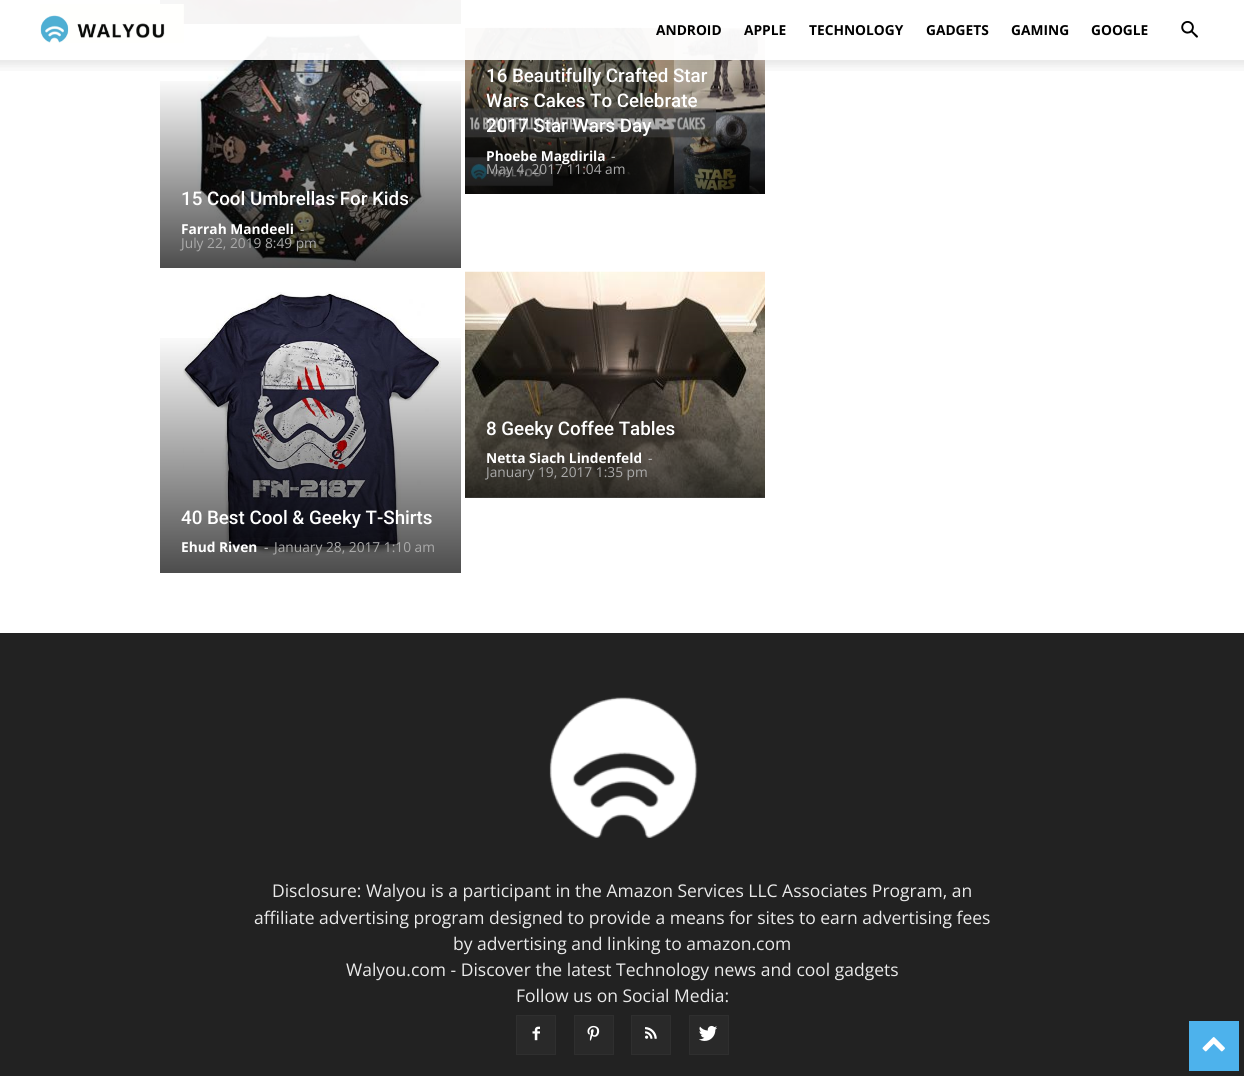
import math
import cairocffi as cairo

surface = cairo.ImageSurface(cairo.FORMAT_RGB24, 1244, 1076)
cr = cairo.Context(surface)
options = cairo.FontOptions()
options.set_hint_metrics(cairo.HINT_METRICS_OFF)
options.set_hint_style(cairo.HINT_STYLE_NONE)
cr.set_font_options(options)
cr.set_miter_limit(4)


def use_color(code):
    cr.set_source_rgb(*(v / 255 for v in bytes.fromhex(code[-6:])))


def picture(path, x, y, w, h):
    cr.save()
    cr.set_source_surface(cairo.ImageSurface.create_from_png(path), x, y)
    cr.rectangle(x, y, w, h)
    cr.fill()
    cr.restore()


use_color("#ffffff")
cr.paint()
picture("img4.png", 160, 0, 302, 24)
picture("img5.png", 465, 27, 300, 167)
picture("img6.png", 197, 28, 228, 240)
cr.set_source_rgba(1, 1, 1, 0.95)
cr.rectangle(160, 0, 605, 60)
cr.fill()
picture("img1.png", 40, 4, 144, 39)
cr.select_font_face("Open Sans", cairo.FONT_SLANT_NORMAL, cairo.FONT_WEIGHT_BOLD)
cr.set_font_size(13.75)
use_color("#000000")
cr.move_to(656, 35)
cr.show_text("ANDROID")
cr.move_to(744, 35)
cr.show_text("APPLE")
cr.move_to(809, 35)
cr.show_text("TECHNOLOGY")
cr.move_to(926, 35)
cr.show_text("GADGETS")
cr.move_to(1011, 35)
cr.show_text("GAMING")
cr.move_to(1091, 35)
cr.show_text("GOOGLE")
picture("img2.png", 1181, 21, 17, 17)
cr.select_font_face("Roboto Medium")
cr.set_font_size(18.75)
use_color("#ffffff")
cr.move_to(486, 82)
cr.show_text("16 Beautifully Crafted Star")
picture("img3.png", 0, 60, 1244, 11)
cr.move_to(486, 107)
cr.show_text("Wars Cakes To Celebrate")
cr.move_to(486, 132)
cr.show_text("2017 Star Wars Day")
cr.select_font_face("Open Sans", cairo.FONT_SLANT_NORMAL, cairo.FONT_WEIGHT_BOLD)
cr.set_font_size(13.75)
cr.move_to(486, 161)
cr.show_text("Phoebe Magdirila")
cr.select_font_face("Open Sans")
use_color("#cccccc")
cr.move_to(611, 161)
cr.show_text("-")
use_color("#aaaaaa")
cr.move_to(486, 174)
cr.show_text("May 4, 2017 11:04 am")
gradient = cairo.LinearGradient(311, 75, 311, 268)
gradient.add_color_stop_rgba(0, 0, 0, 0, 0)
gradient.add_color_stop_rgba(1, 0, 0, 0, 0.7)
cr.set_source(gradient)
cr.rectangle(160, 81, 301, 187)
cr.fill()
cr.select_font_face("Roboto Medium")
cr.set_font_size(18.75)
use_color("#ffffff")
cr.move_to(181, 205)
cr.show_text("15 Cool Umbrellas For Kids")
cr.select_font_face("Open Sans", cairo.FONT_SLANT_NORMAL, cairo.FONT_WEIGHT_BOLD)
cr.set_font_size(13.75)
cr.move_to(181, 234)
cr.show_text("Farrah Mandeeli")
cr.select_font_face("Open Sans")
use_color("#cccccc")
cr.move_to(300, 234)
cr.show_text("-")
use_color("#aaaaaa")
cr.move_to(181, 248)
cr.show_text("July 22, 2019 8:49 pm")
picture("img7.png", 465, 271, 300, 227)
gradient = cairo.LinearGradient(615, 316, 615, 498)
gradient.add_color_stop_rgba(0, 0, 0, 0, 0)
gradient.add_color_stop_rgba(1, 0, 0, 0, 0.7)
cr.set_source(gradient)
cr.rectangle(465, 322, 300, 176)
cr.fill()
cr.select_font_face("Roboto Medium")
cr.set_font_size(18.75)
use_color("#ffffff")
cr.move_to(486, 435)
cr.show_text("8 Geeky Coffee Tables")
cr.select_font_face("Open Sans", cairo.FONT_SLANT_NORMAL, cairo.FONT_WEIGHT_BOLD)
cr.set_font_size(13.75)
cr.move_to(486, 463)
cr.show_text("Netta Siach Lindenfeld")
cr.select_font_face("Open Sans")
use_color("#cccccc")
cr.move_to(648, 463)
cr.show_text("-")
use_color("#aaaaaa")
cr.move_to(486, 477)
cr.show_text("January 19, 2017 1:35 pm")
picture("img8.png", 183, 292, 258, 265)
gradient = cairo.LinearGradient(311, 331, 311, 573)
gradient.add_color_stop_rgba(0, 0, 0, 0, 0)
gradient.add_color_stop_rgba(1, 0, 0, 0, 0.7)
cr.set_source(gradient)
cr.rectangle(160, 338, 301, 235)
cr.fill()
cr.select_font_face("Roboto Medium")
cr.set_font_size(18.75)
use_color("#ffffff")
cr.move_to(181, 524)
cr.show_text("40 Best Cool & Geeky T-Shirts")
cr.select_font_face("Open Sans", cairo.FONT_SLANT_NORMAL, cairo.FONT_WEIGHT_BOLD)
cr.set_font_size(13.75)
cr.move_to(181, 552)
cr.show_text("Ehud Riven")
cr.select_font_face("Open Sans")
use_color("#cccccc")
cr.move_to(264, 552)
cr.show_text("-")
use_color("#aaaaaa")
cr.move_to(274, 552)
cr.show_text("January 28, 2017 1:10 am")
use_color("#222222")
cr.rectangle(0, 633, 1244, 443)
cr.fill()
picture("img9.png", 549, 697, 149, 141)
cr.set_font_size(17.5)
use_color("#eaeaea")
cr.move_to(272, 897)
cr.show_text("Disclosure: Walyou is a participant in the Amazon Services LLC Associates Program, an")
cr.move_to(254, 924)
cr.show_text("affiliate advertising program designed to provide a means for sites to earn advertising fees")
cr.move_to(453, 950)
cr.show_text("by advertising and linking to amazon.com")
cr.move_to(346, 976)
cr.show_text("Walyou.com - Discover the latest Technology news and cool gadgets")
cr.move_to(516, 1002)
cr.show_text("Follow us on Social Media:")
use_color("#292929")
cr.rectangle(517, 1016, 38, 38)
cr.fill()
picture("img10.png", 532, 1026, 8, 15)
cr.rectangle(516.5, 1015.5, 39, 39)
use_color("#2f2f2f")
cr.set_line_width(1)
cr.stroke()
use_color("#292929")
cr.rectangle(575, 1016, 38, 38)
cr.fill()
picture("img11.png", 587, 1025, 13, 16)
cr.rectangle(574.5, 1015.5, 39, 39)
use_color("#2f2f2f")
cr.stroke()
use_color("#292929")
cr.rectangle(632, 1016, 38, 38)
cr.fill()
picture("img12.png", 645, 1027, 12, 12)
cr.rectangle(631.5, 1015.5, 39, 39)
use_color("#2f2f2f")
cr.stroke()
use_color("#292929")
cr.rectangle(690, 1016, 38, 38)
cr.fill()
picture("img13.png", 699, 1025, 18, 16)
cr.rectangle(689.5, 1015.5, 39, 39)
use_color("#2f2f2f")
cr.stroke()
use_color("#4db2ec")
cr.rectangle(1189, 1021, 50, 50)
cr.fill()
picture("img14.png", 1202, 1037, 23, 15)
surface.write_to_png("result.png")
